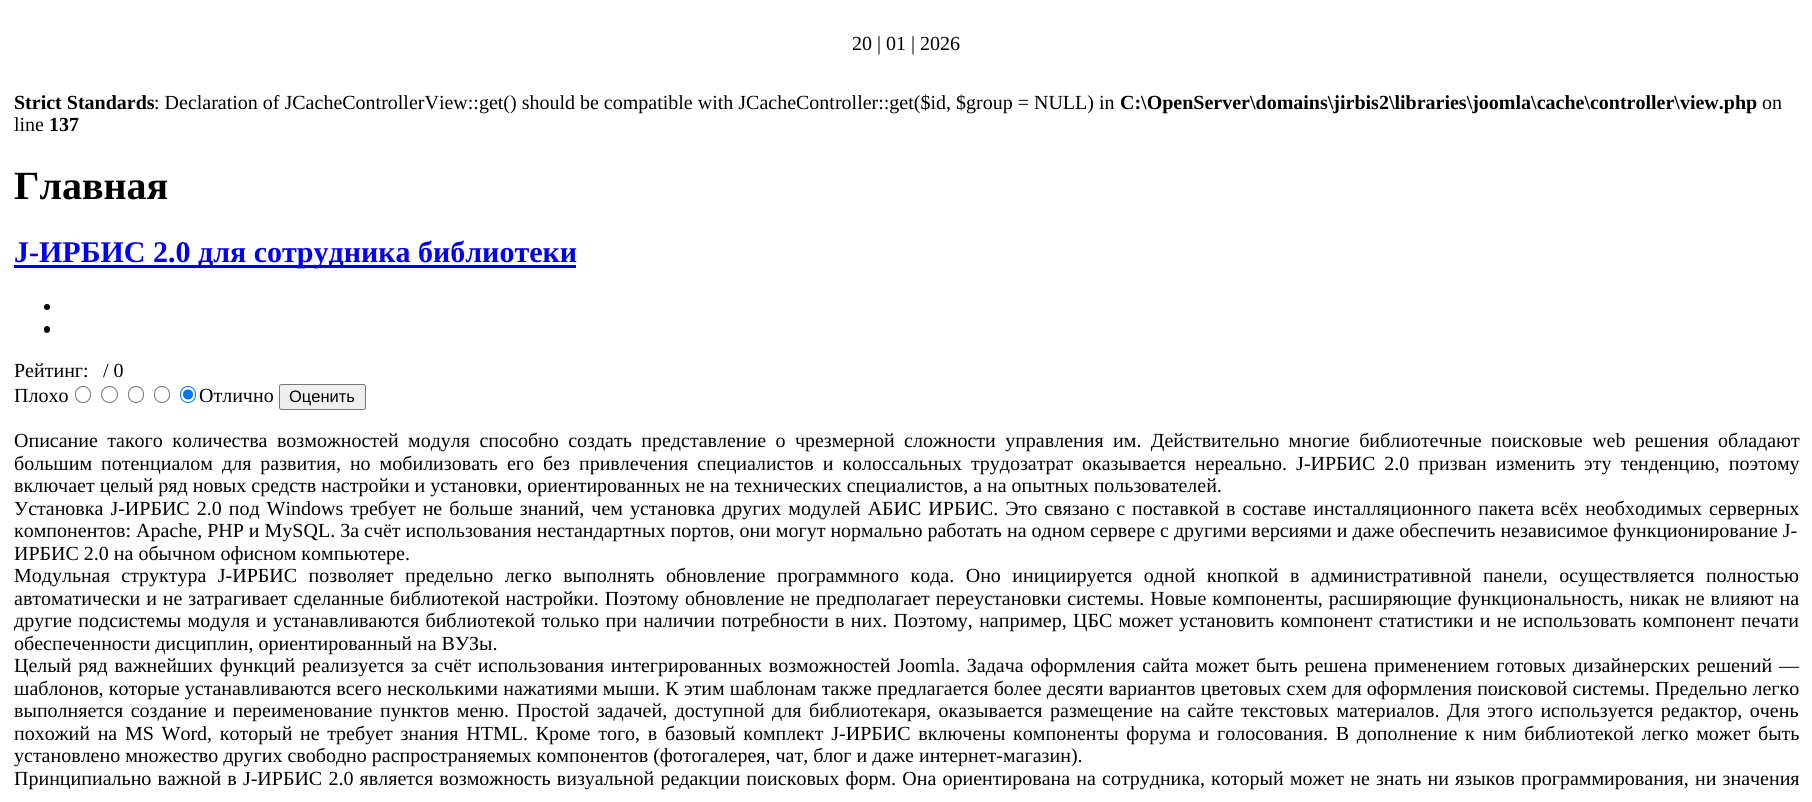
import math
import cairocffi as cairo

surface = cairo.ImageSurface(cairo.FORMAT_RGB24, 1812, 802)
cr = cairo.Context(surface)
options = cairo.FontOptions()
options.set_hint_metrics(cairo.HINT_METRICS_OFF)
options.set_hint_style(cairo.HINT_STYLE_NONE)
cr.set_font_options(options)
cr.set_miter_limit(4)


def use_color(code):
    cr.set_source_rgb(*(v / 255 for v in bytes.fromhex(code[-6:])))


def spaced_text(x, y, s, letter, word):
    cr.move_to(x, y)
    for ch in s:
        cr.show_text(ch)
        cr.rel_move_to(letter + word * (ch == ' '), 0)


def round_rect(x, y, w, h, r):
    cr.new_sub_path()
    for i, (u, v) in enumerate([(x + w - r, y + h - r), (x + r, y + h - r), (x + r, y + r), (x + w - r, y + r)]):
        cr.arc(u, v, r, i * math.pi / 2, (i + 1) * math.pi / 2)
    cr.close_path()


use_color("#ffffff")
cr.paint()
cr.select_font_face("Liberation Serif")
cr.set_font_size(20)
use_color("#000000")
cr.move_to(852, 50)
cr.show_text("20 | 01 | 2026")
cr.select_font_face("Liberation Serif", cairo.FONT_SLANT_NORMAL, cairo.FONT_WEIGHT_BOLD)
cr.move_to(14, 109)
cr.show_text("Strict Standards")
cr.select_font_face("Liberation Serif")
cr.move_to(154, 109)
cr.show_text(": Declaration of JCacheControllerView::get() should be compatible with JCacheController::get($id, $group = NULL) in")
cr.select_font_face("Liberation Serif", cairo.FONT_SLANT_NORMAL, cairo.FONT_WEIGHT_BOLD)
cr.move_to(1120, 109)
cr.show_text("C:\\OpenServer\\domains\\jirbis2\\libraries\\joomla\\cache\\controller\\view.php")
cr.select_font_face("Liberation Serif")
cr.move_to(1762, 109)
cr.show_text("on")
cr.move_to(14, 131)
cr.show_text("line")
cr.select_font_face("Liberation Serif", cairo.FONT_SLANT_NORMAL, cairo.FONT_WEIGHT_BOLD)
cr.move_to(49, 131)
cr.show_text("137")
cr.set_font_size(40)
cr.move_to(14, 199)
cr.show_text("Главная")
use_color("#0000ee")
cr.rectangle(14, 265, 562, 3)
cr.fill()
cr.set_font_size(30)
cr.move_to(14, 262)
cr.show_text("J-ИРБИС 2.0 для сотрудника библиотеки")
use_color("#000000")
cr.new_path()
cr.arc(47, 307, 3, 0, 2 * math.pi)
cr.fill()
round_rect(44, 326, 6, 7, 3)
cr.fill()
cr.select_font_face("Liberation Serif")
cr.set_font_size(20)
cr.move_to(14, 377)
cr.show_text("Рейтинг:")
cr.move_to(103, 377)
cr.show_text("/ 0")
cr.move_to(14, 402)
cr.show_text("Плохо")
round_rect(75.5, 386.5, 15, 16, 7.5)
use_color("#767676")
cr.set_line_width(1)
cr.stroke()
cr.arc(109.5, 394.5, 8, 0, 2 * math.pi)
cr.stroke()
round_rect(128.5, 386.5, 15, 16, 7.5)
cr.stroke()
round_rect(154.5, 386.5, 15, 16, 7.5)
cr.stroke()
round_rect(180.5, 386.5, 15, 16, 7.5)
use_color("#0075ff")
cr.stroke()
cr.arc(188, 394.5, 5, 0, 2 * math.pi)
cr.fill()
use_color("#000000")
cr.move_to(199, 402)
cr.show_text("Отлично")
use_color("#efefef")
round_rect(279.5, 384.5, 86, 25, 2)
cr.fill_preserve()
use_color("#767676")
cr.stroke()
cr.select_font_face("Liberation Sans")
cr.set_font_size(16.5)
use_color("#000000")
cr.move_to(289, 402)
cr.show_text("Оценить")
cr.select_font_face("Liberation Serif")
cr.set_font_size(20)
spaced_text(14, 447, "Описание такого количества возможностей модуля способно создать представление о чрезмерной сложности управления им. Действительно многие библиотечные поисковые web решения обладают", 0, 4.4)
spaced_text(14, 470, "большим потенциалом для развития, но мобилизовать его без привлечения специалистов и колоссальных трудозатрат оказывается нереально. J-ИРБИС 2.0 призван изменить эту тенденцию, поэтому", 0, 4)
cr.move_to(14, 492)
cr.show_text("включает целый ряд новых средств настройки и установки, ориентированных не на технических специалистов, а на опытных пользователей.")
spaced_text(14, 515, "Установка J-ИРБИС 2.0 под Windows требует не больше знаний, чем установка других модулей АБИС ИРБИС. Это связано с поставкой в составе инсталляционного пакета всёх необходимых серверных", 0, 2)
cr.move_to(14, 537)
cr.show_text("компонентов: Apache, PHP и MуSQL. За счёт использования нестандартных портов, они могут нормально работать на одном сервере с другими версиями и даже обеспечить независимое функционирование J-")
cr.move_to(14, 560)
cr.show_text("ИРБИС 2.0 на обычном офисном компьютере.")
spaced_text(14, 582, "Модульная структура J-ИРБИС позволяет предельно легко выполнять обновление программного кода. Оно инициируется одной кнопкой в административной панели, осуществляется полностью", 0, 6.5)
spaced_text(14, 605, "автоматически и не затрагивает сделанные библиотекой настройки. Поэтому обновление не предполагает переустановки системы. Новые компоненты, расширяющие функциональность, никак не влияют на", 0, 0.9)
spaced_text(14, 627, "другие подсистемы модуля и устанавливаются библиотекой только при наличии потребности в них. Поэтому, например, ЦБС может установить компонент статистики и не использовать компонент печати", 0, 1.3)
cr.move_to(14, 650)
cr.show_text("обеспеченности дисциплин, ориентированный на ВУЗы.")
spaced_text(14, 672, "Целый ряд важнейших функций реализуется за счёт использования интегрированных возможностей Joomla. Задача оформления сайта может быть решена применением готовых дизайнерских решений —", 0, 1.8)
spaced_text(14, 695, "шаблонов, которые устанавливаются всего несколькими нажатиями мыши. К этим шаблонам также предлагается более десяти вариантов цветовых схем для оформления поисковой системы. Предельно легко", 0, 0.25)
spaced_text(14, 717, "выполняется создание и переименование пунктов меню. Простой задачей, доступной для библиотекаря, оказывается размещение на сайте текстовых материалов. Для этого используется редактор, очень", 0, 2.5)
spaced_text(14, 740, "похожий на MS Word, который не требует знания HTML. Кроме того, в базовый комплект J-ИРБИС включены компоненты форума и голосования. В дополнение к ним библиотекой легко может быть", 0, 2.7)
cr.move_to(14, 762)
cr.show_text("установлено множество других свободно распространяемых компонентов (фотогалерея, чат, блог и даже интернет-магазин).")
spaced_text(14, 785, "Принципиально важной в J-ИРБИС 2.0 является возможность визуальной редакции поисковых форм. Она ориентирована на сотрудника, который может не знать ни языков программирования, ни значения", 0, 1.2)
surface.write_to_png("result.png")
